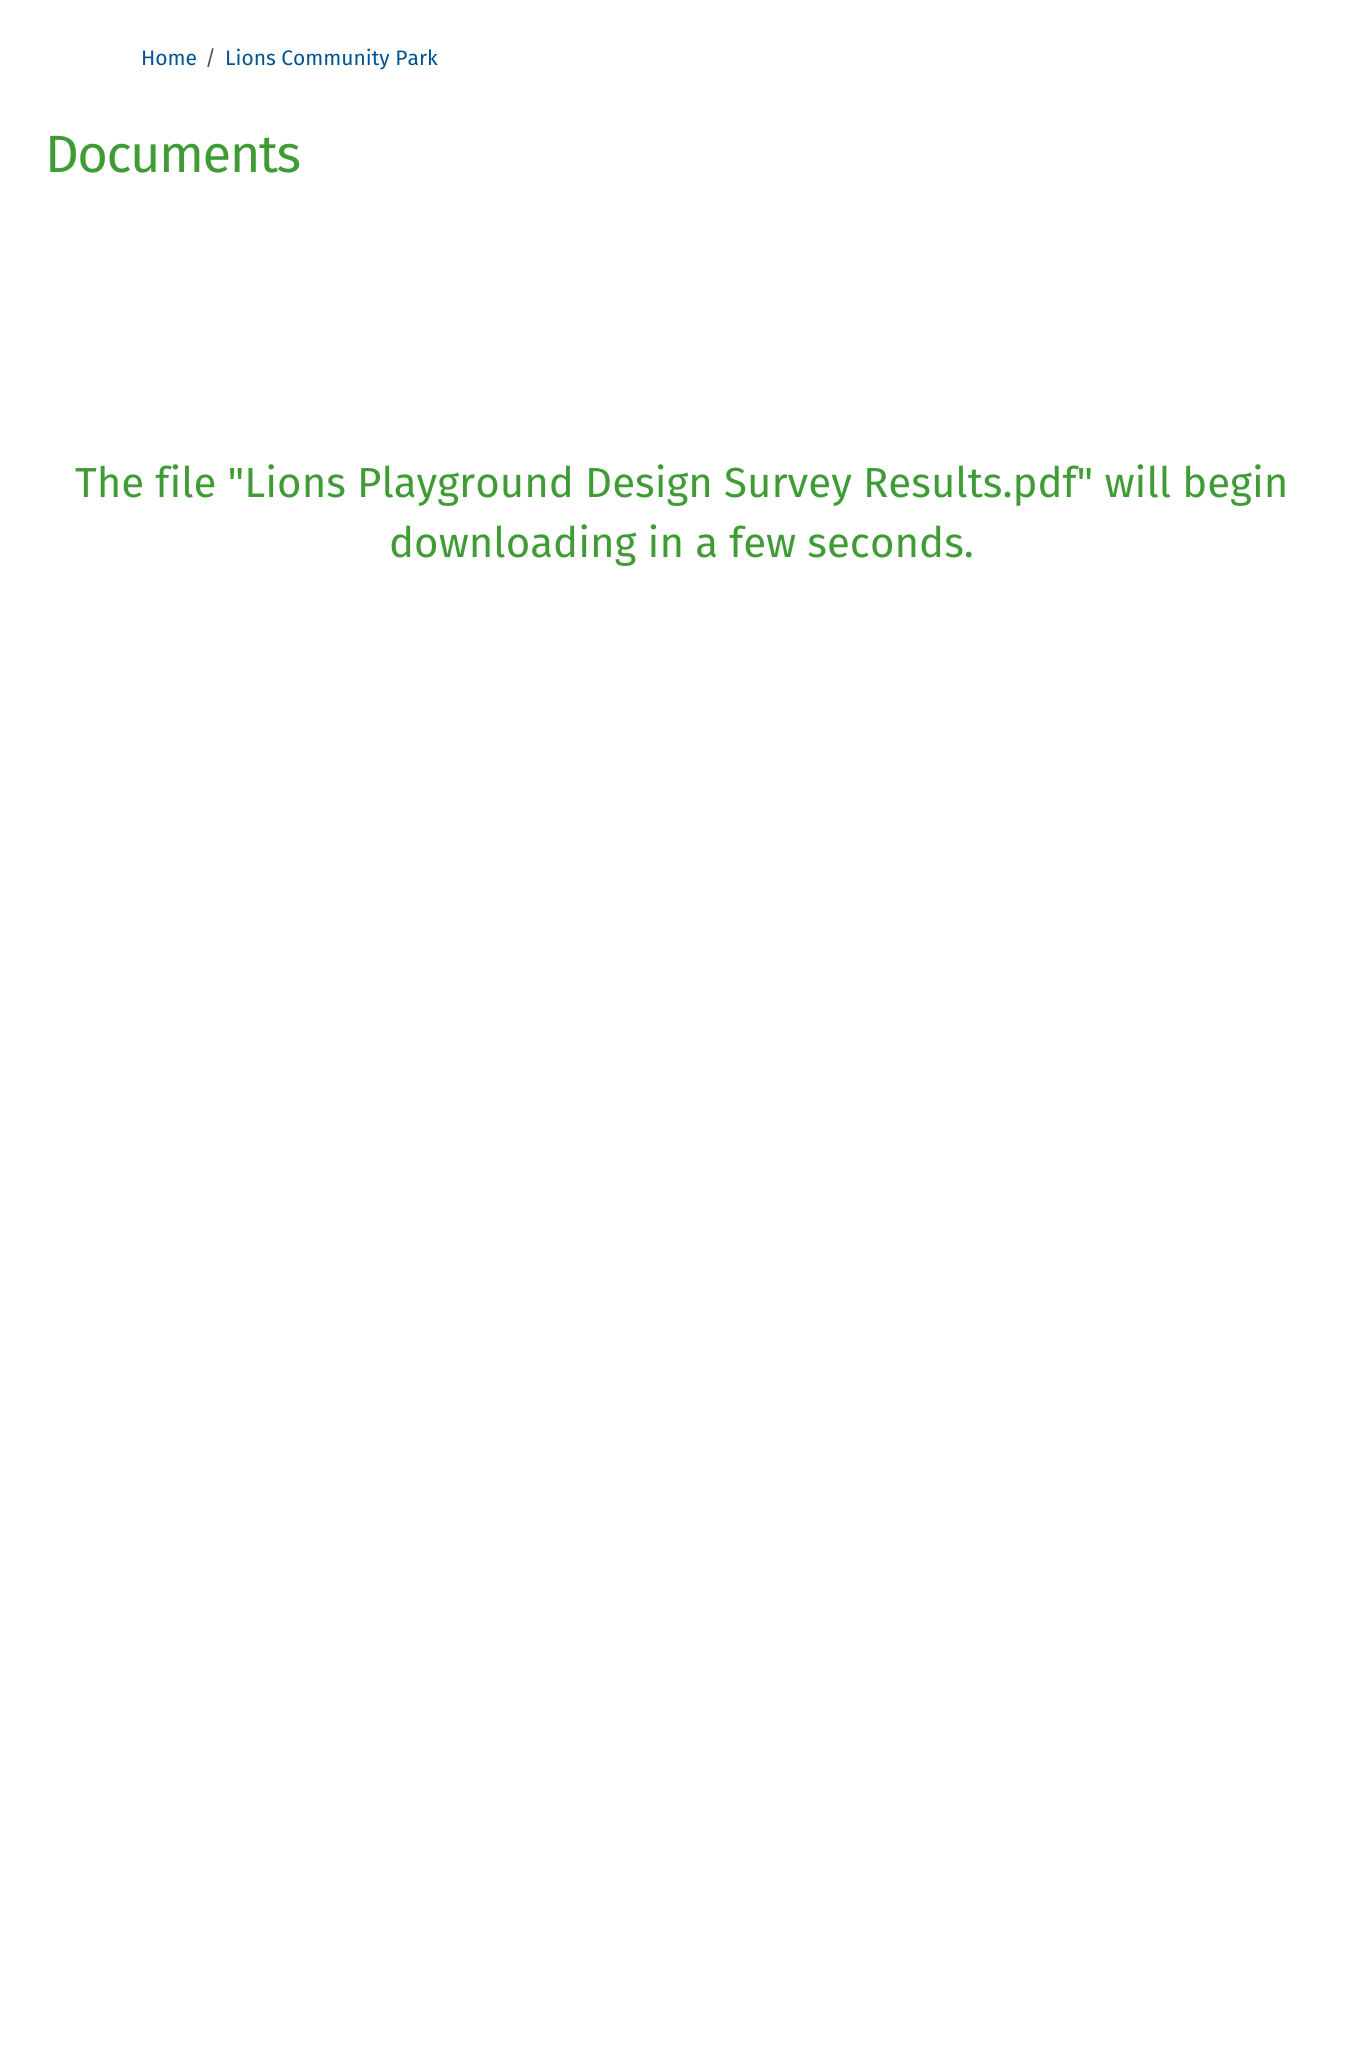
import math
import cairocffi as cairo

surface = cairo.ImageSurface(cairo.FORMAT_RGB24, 1363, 2069)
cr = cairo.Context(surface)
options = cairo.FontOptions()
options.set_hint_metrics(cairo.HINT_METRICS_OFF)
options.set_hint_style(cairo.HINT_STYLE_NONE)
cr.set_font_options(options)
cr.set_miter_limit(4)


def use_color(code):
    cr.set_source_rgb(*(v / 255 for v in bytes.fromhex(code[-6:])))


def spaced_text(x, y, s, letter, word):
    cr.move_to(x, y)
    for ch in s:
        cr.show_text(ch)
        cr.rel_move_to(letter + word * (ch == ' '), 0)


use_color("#ffffff")
cr.paint()
cr.select_font_face("Fira Sans")
cr.set_font_size(21)
use_color("#005293")
cr.move_to(141, 65)
cr.show_text("Home")
use_color("#555555")
cr.move_to(205, 65)
cr.show_text("/")
use_color("#005293")
cr.move_to(225, 65)
cr.show_text("Lions Community Park")
cr.set_font_size(52.5)
use_color("#3f9c35")
spaced_text(45, 172, "Documents", -1.5, 0)
cr.set_font_size(42)
cr.move_to(75, 497)
cr.show_text("The file \"Lions Playground Design Survey Results.pdf\" will begin")
cr.move_to(389, 557)
cr.show_text("downloading in a few seconds.")
surface.write_to_png("result.png")
